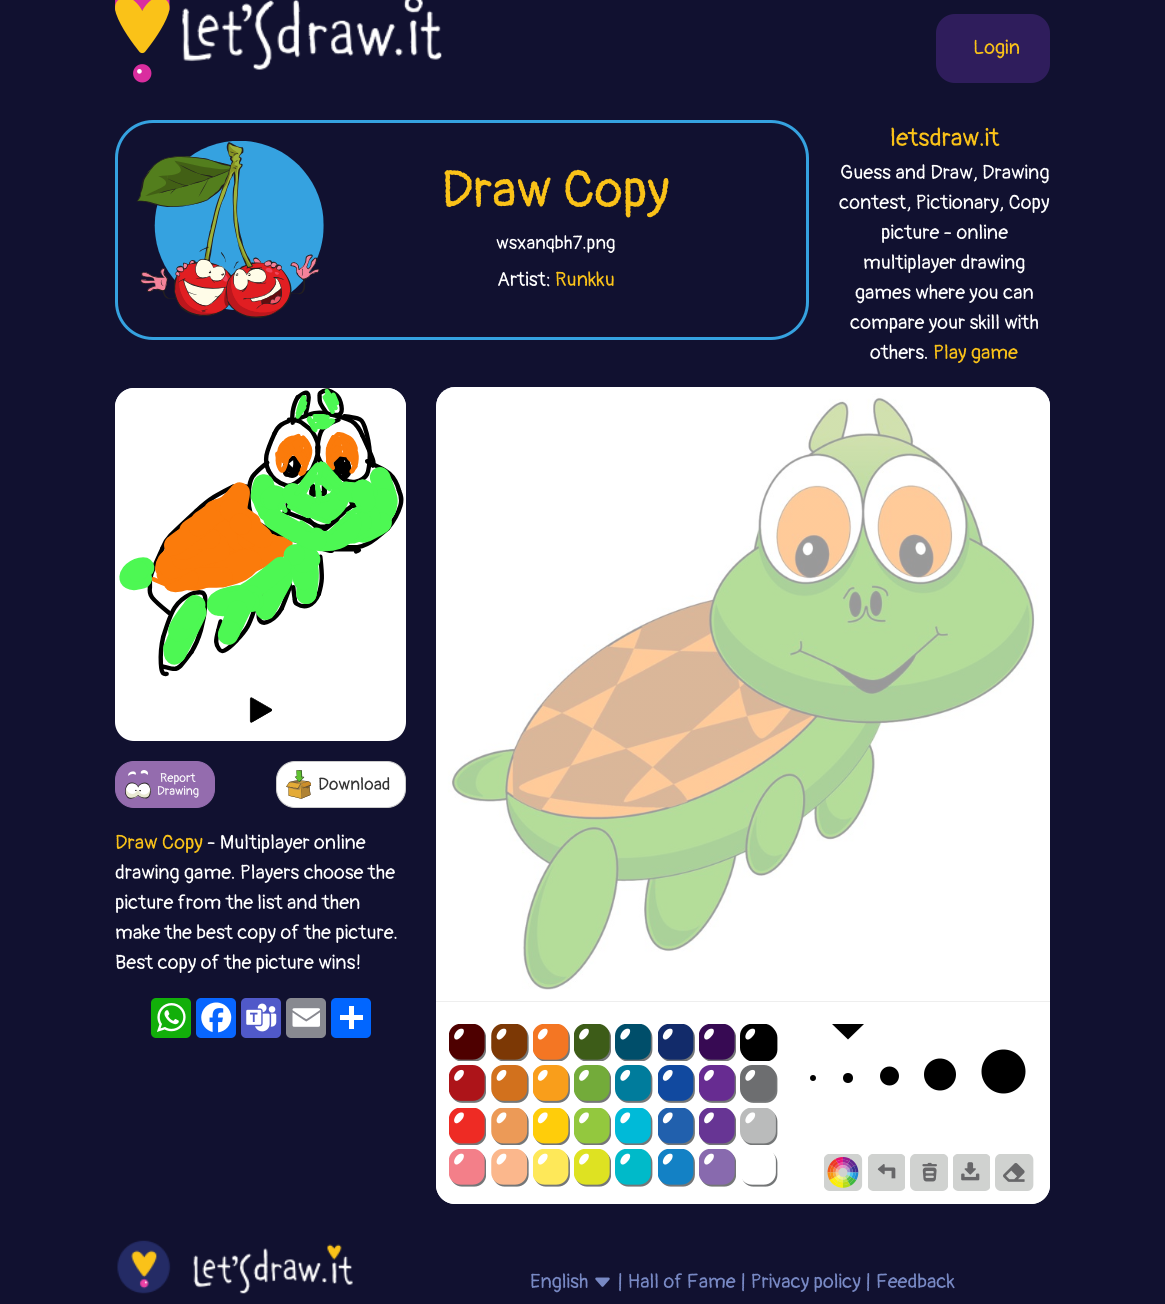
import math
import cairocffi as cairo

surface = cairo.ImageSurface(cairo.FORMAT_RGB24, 1165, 1304)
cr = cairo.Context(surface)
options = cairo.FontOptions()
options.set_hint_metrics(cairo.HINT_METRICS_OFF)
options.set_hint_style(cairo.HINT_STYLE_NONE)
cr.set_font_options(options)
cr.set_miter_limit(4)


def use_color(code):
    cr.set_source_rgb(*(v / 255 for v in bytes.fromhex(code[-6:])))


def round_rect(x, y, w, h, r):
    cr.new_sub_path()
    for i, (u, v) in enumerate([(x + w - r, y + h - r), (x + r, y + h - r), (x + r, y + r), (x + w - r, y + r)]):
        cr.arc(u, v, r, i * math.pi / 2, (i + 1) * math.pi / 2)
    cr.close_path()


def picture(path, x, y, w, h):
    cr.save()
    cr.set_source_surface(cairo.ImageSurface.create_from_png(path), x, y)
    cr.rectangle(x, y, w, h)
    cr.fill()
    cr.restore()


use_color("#111130")
cr.paint()
picture("img1.png", 115, 0, 55, 83)
picture("img2.png", 182, 0, 260, 70)
use_color("#2f1d5c")
round_rect(936, 14, 114, 69, 19)
cr.fill()
cr.select_font_face("Pangolin")
cr.set_font_size(20)
use_color("#fac218")
cr.move_to(973, 54)
cr.show_text("Login")
round_rect(116.5, 121.5, 691, 217, 36.5)
use_color("#35a2e0")
cr.set_line_width(3)
cr.stroke()
picture("img3.png", 136, 141, 188, 177)
cr.set_font_size(52)
use_color("#fac218")
cr.move_to(441, 207)
cr.show_text("Draw Copy")
cr.set_font_size(18.75)
use_color("#ffffff")
cr.move_to(496, 249)
cr.show_text("wsxanqbh7.png")
cr.set_font_size(20)
cr.move_to(497, 286)
cr.show_text("Artist:")
use_color("#fac218")
cr.move_to(555, 286)
cr.show_text("Runkku")
cr.set_font_size(25)
cr.move_to(890, 146)
cr.show_text("letsdraw.it")
cr.set_font_size(20)
use_color("#ffffff")
cr.move_to(840, 179)
cr.show_text("Guess and Draw, Drawing")
cr.move_to(839, 209)
cr.show_text("contest, Pictionary, Copy")
cr.move_to(881, 239)
cr.show_text("picture - online")
cr.move_to(863, 269)
cr.show_text("multiplayer drawing")
cr.move_to(855, 299)
cr.show_text("games where you can")
cr.move_to(850, 329)
cr.show_text("compare your skill with")
cr.move_to(870, 359)
cr.show_text("others.")
use_color("#fac218")
cr.move_to(933, 359)
cr.show_text("Play game")
use_color("#ffffff")
round_rect(115, 388, 291, 353, 19)
cr.fill()
cr.new_path()
cr.move_to(134, 388)
cr.line_to(387, 388)
cr.curve_to(397.5, 388, 406, 396.5, 406, 407)
cr.line_to(406, 679)
cr.line_to(115, 679)
cr.line_to(115, 407)
cr.curve_to(115, 396.5, 123.5, 388, 134, 388)
cr.close_path()
cr.fill()
picture("img4.png", 119, 388, 285, 289)
picture("img5.png", 249, 697, 23, 26)
use_color("#946cae")
round_rect(115.5, 761.5, 99, 46, 18.5)
cr.fill_preserve()
cr.set_line_width(1)
cr.stroke()
picture("img6.png", 125, 770, 26, 29)
cr.set_font_size(12.5)
use_color("#ffffff")
cr.move_to(160, 782)
cr.show_text("Report")
cr.move_to(157, 795)
cr.show_text("Drawing")
round_rect(276.5, 761.5, 129, 46, 18.5)
cr.fill_preserve()
use_color("#cccccc")
cr.stroke()
picture("img7.png", 286, 770, 25, 29)
cr.set_font_size(17.5)
use_color("#333333")
cr.move_to(318, 790)
cr.show_text("Download")
cr.set_font_size(20)
use_color("#fac218")
cr.move_to(115, 849)
cr.show_text("Draw Copy")
use_color("#ffffff")
cr.move_to(207, 849)
cr.show_text("- Multiplayer online")
cr.move_to(115, 879)
cr.show_text("drawing game. Players choose the")
cr.move_to(115, 909)
cr.show_text("picture from the list and then")
cr.move_to(115, 939)
cr.show_text("make the best copy of the picture.")
cr.move_to(115, 969)
cr.show_text("Best copy of the picture wins!")
use_color("#12af0a")
round_rect(151, 998, 40, 40, 5)
cr.fill()
picture("img8.png", 157, 1003, 29, 29)
use_color("#0866ff")
round_rect(196, 998, 40, 40, 5)
cr.fill()
picture("img9.png", 201, 1002, 31, 31)
use_color("#5059c9")
round_rect(241, 998, 40, 40, 5)
cr.fill()
picture("img10.png", 246, 1003, 31, 29)
use_color("#888990")
round_rect(286, 998, 40, 40, 5)
cr.fill()
picture("img11.png", 292, 1008, 28, 19)
use_color("#0166ff")
round_rect(331, 998, 40, 40, 5)
cr.fill()
use_color("#ffffff")
cr.rectangle(349, 1006, 5, 23)
cr.fill()
cr.rectangle(340, 1015, 23, 5)
cr.fill()
round_rect(436, 388, 614, 816, 19)
cr.fill()
picture("img12.png", 436, 387, 614, 603)
use_color("#eeeeee")
cr.rectangle(436, 1001, 614, 1)
cr.fill()
use_color("#ffffff")
cr.new_path()
cr.move_to(436, 1011)
cr.line_to(1050, 1011)
cr.line_to(1050, 1185)
cr.curve_to(1050, 1195.5, 1041.5, 1204, 1031, 1204)
cr.line_to(455, 1204)
cr.curve_to(444.5, 1204, 436, 1195.5, 436, 1185)
cr.close_path()
cr.fill()
picture("img13.png", 449, 1024, 37, 37)
picture("img14.png", 449, 1065, 37, 38)
picture("img15.png", 449, 1108, 37, 37)
picture("img16.png", 449, 1149, 37, 38)
picture("img17.png", 491, 1024, 38, 37)
picture("img18.png", 491, 1065, 38, 38)
picture("img19.png", 491, 1108, 38, 37)
picture("img20.png", 491, 1149, 38, 38)
picture("img21.png", 533, 1024, 37, 37)
picture("img22.png", 533, 1065, 37, 38)
picture("img23.png", 533, 1108, 37, 37)
picture("img24.png", 533, 1149, 37, 38)
picture("img25.png", 574, 1024, 37, 37)
picture("img26.png", 574, 1065, 37, 38)
picture("img27.png", 574, 1108, 37, 37)
picture("img28.png", 574, 1149, 37, 38)
picture("img29.png", 615, 1024, 38, 37)
picture("img30.png", 615, 1065, 38, 38)
picture("img31.png", 615, 1108, 38, 37)
picture("img32.png", 615, 1149, 38, 38)
picture("img33.png", 658, 1024, 37, 37)
picture("img34.png", 658, 1065, 37, 38)
picture("img35.png", 658, 1108, 37, 37)
picture("img36.png", 658, 1149, 37, 38)
picture("img37.png", 699, 1024, 37, 37)
picture("img38.png", 699, 1065, 37, 38)
picture("img39.png", 699, 1108, 37, 37)
picture("img40.png", 699, 1149, 37, 38)
picture("img41.png", 740, 1024, 38, 37)
picture("img42.png", 740, 1065, 38, 38)
picture("img43.png", 740, 1108, 38, 37)
picture("img44.png", 742, 1153, 36, 34)
use_color("#000000")
cr.new_path()
cr.move_to(848, 1039.5)
cr.line_to(864, 1024)
cr.line_to(832, 1024)
cr.close_path()
cr.fill()
cr.arc(813, 1078, 3, 0, 2 * math.pi)
cr.fill()
cr.arc(848, 1078, 5, 0, 2 * math.pi)
cr.fill()
cr.arc(889.5, 1076, 9.5, 0, 2 * math.pi)
cr.fill()
cr.arc(940, 1074.5, 16, 0, 2 * math.pi)
cr.fill()
cr.arc(1003.5, 1071.5, 22, 0, 2 * math.pi)
cr.fill()
picture("img45.png", 824, 1154, 39, 37)
picture("img46.png", 868, 1154, 37, 37)
picture("img47.png", 910, 1154, 38, 37)
picture("img48.png", 953, 1154, 37, 37)
picture("img49.png", 995, 1154, 39, 37)
picture("img50.png", 117, 1240, 236, 54)
use_color("#7889c4")
cr.move_to(530, 1288)
cr.show_text("English")
picture("img51.png", 595, 1277, 15, 10)
cr.move_to(617, 1288)
cr.show_text("| Hall of Fame | Privacy policy | Feedback")
surface.write_to_png("result.png")
